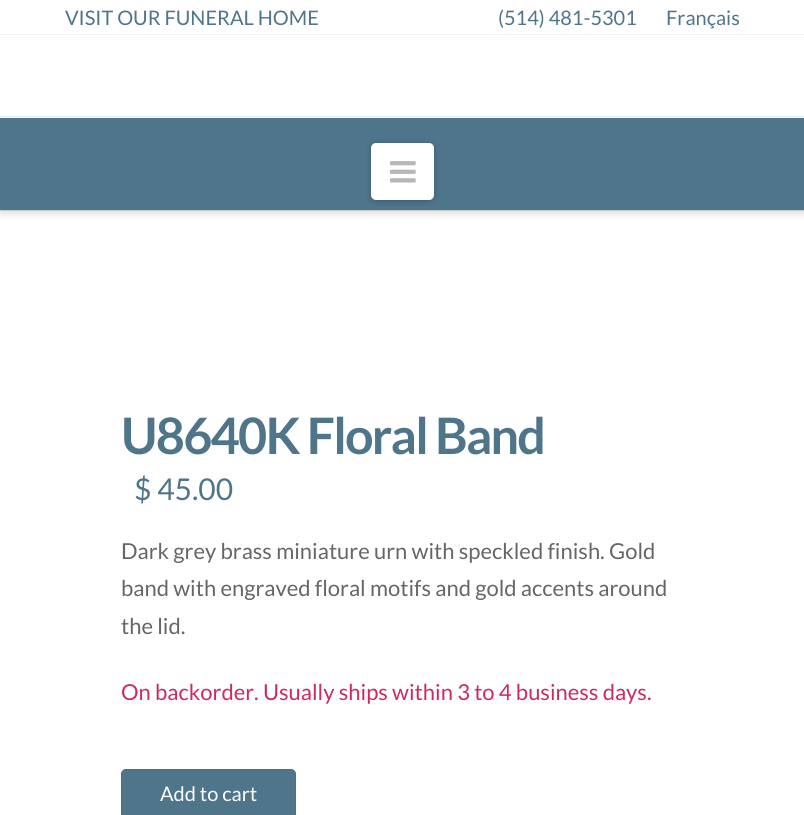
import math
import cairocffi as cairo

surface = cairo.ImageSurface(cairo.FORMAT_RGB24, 804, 815)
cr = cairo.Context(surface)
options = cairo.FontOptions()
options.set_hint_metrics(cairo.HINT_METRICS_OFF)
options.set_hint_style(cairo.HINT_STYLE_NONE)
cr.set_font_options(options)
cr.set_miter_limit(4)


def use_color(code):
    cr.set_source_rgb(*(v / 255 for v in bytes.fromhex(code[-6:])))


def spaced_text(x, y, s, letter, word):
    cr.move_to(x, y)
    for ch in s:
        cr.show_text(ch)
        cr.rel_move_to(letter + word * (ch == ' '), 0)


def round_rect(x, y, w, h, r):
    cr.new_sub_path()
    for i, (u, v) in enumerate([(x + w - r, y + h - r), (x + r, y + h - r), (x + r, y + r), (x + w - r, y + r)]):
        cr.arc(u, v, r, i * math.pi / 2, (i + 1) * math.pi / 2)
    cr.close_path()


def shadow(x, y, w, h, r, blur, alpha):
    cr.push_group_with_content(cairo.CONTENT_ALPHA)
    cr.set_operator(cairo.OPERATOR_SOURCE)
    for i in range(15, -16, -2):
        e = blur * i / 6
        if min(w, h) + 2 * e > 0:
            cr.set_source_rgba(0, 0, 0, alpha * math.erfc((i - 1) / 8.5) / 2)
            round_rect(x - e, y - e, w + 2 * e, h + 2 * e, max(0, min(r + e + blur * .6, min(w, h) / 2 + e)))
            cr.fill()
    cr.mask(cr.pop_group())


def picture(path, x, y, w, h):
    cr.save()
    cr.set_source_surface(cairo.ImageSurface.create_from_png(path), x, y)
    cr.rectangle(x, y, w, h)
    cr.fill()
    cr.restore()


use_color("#ffffff")
cr.paint()
use_color("#f2f2f2")
cr.rectangle(0, 34, 804, 1)
cr.fill()
cr.select_font_face("Lato")
cr.set_font_size(20)
use_color("#4f758b")
cr.move_to(65, 25)
cr.show_text("VISIT OUR FUNERAL HOME")
cr.move_to(498, 25)
cr.show_text("(514) 481-5301")
cr.move_to(666, 25)
cr.show_text("Français")
use_color("#f2f2f2")
cr.rectangle(0, 116, 804, 1)
cr.fill()
use_color("#000000")
shadow(0, 120, 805, 94, 0, 3.5, 0.13)
use_color("#cccccc")
cr.rectangle(0, 210, 804, 1)
cr.fill()
use_color("#4f758b")
cr.rectangle(0, 118, 804, 92)
cr.fill()
use_color("#000000")
shadow(371, 144, 63, 57, 5, 3, 0.25)
use_color("#ffffff")
round_rect(371, 143, 63, 57, 5)
cr.fill()
picture("img1.png", 390, 161, 26, 22)
cr.select_font_face("Lato", cairo.FONT_SLANT_NORMAL, cairo.FONT_WEIGHT_BOLD)
cr.set_font_size(50.25)
use_color("#4f758b")
spaced_text(121, 454, "U8640K Floral Band", -1.75, 0)
cr.select_font_face("Lato")
cr.set_font_size(30)
cr.move_to(134, 500)
cr.show_text("$ 45.00")
cr.set_font_size(22)
use_color("#666666")
cr.move_to(121, 559)
cr.show_text("Dark grey brass miniature urn with speckled finish. Gold")
cr.move_to(121, 596)
cr.show_text("band with engraved floral motifs and gold accents around")
cr.move_to(121, 634)
cr.show_text("the lid.")
use_color("#cc2b5e")
cr.move_to(121, 700)
cr.show_text("On backorder. Usually ships within 3 to 4 business days.")
use_color("#4f758b")
round_rect(121.5, 769.5, 174, 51, 4.5)
cr.fill_preserve()
use_color("#666666")
cr.set_line_width(1)
cr.stroke()
cr.set_font_size(20)
use_color("#ffffff")
cr.move_to(160, 801)
cr.show_text("Add to cart")
surface.write_to_png("result.png")
